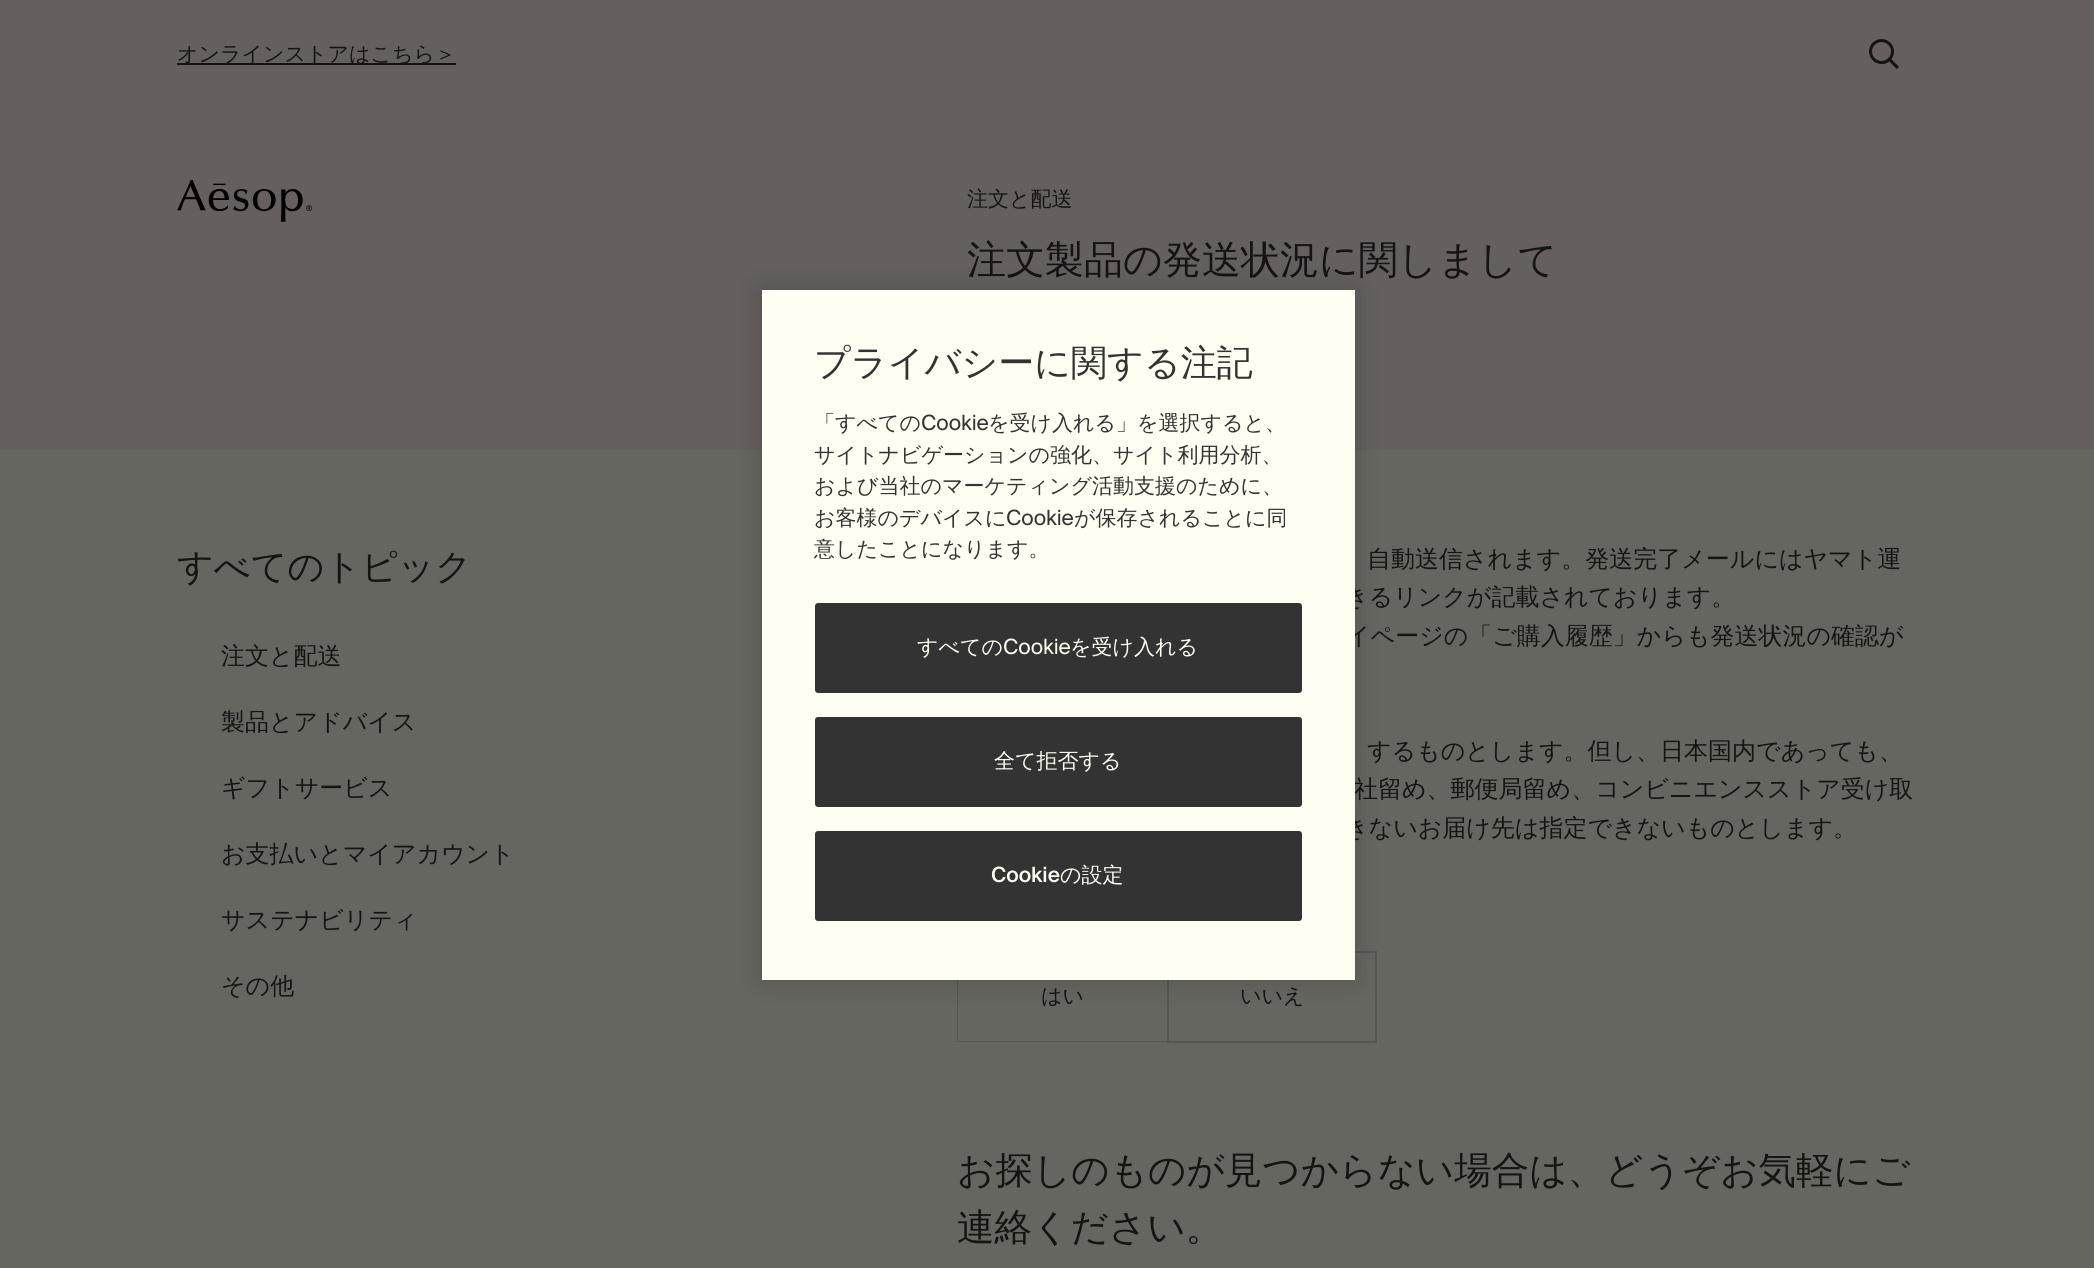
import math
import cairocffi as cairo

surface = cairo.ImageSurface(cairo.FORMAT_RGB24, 2094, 1268)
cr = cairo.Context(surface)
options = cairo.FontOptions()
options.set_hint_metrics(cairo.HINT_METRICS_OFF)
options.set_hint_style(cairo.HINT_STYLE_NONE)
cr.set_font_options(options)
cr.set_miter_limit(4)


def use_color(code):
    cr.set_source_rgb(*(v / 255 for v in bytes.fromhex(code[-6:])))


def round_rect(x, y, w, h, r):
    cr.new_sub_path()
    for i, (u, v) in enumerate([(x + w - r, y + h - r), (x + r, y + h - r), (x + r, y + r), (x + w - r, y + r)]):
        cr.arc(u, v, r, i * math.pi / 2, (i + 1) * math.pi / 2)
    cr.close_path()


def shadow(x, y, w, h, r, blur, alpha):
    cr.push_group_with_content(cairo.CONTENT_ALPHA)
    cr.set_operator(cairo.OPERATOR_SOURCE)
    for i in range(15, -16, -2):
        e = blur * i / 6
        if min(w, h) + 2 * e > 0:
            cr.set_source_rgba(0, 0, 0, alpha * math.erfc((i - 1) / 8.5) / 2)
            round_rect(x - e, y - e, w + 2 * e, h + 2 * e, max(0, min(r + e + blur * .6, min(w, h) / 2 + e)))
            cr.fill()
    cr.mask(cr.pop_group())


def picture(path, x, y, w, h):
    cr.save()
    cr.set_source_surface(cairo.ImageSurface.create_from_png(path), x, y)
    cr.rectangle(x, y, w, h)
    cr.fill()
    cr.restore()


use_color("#666661")
cr.paint()
use_color("#65605f")
cr.rectangle(0, 0, 2094, 450)
cr.fill()
use_color("#141414")
cr.rectangle(177, 63, 279, 2)
cr.fill()
cr.select_font_face("WenQuanYi Zen Hei Medium")
cr.set_font_size(21)
cr.move_to(177, 61)
cr.show_text("オンラインストアはこちら＞")
picture("img1.png", 1869, 39, 30, 30)
picture("img2.png", 177, 180, 135, 42)
cr.move_to(967, 206)
cr.show_text("注文と配送")
cr.set_font_size(39)
cr.move_to(967, 273)
cr.show_text("注文製品の発送状況に関しまして")
cr.set_font_size(36)
cr.move_to(177, 579)
cr.show_text("すべてのトピック")
cr.set_font_size(24)
cr.move_to(221, 664)
cr.show_text("注文と配送")
cr.move_to(221, 730)
cr.show_text("製品とアドバイス")
cr.move_to(221, 796)
cr.show_text("ギフトサービス")
cr.move_to(221, 862)
cr.show_text("お支払いとマイアカウント")
cr.move_to(221, 928)
cr.show_text("サステナビリティ")
cr.move_to(221, 994)
cr.show_text("その他")
cr.move_to(1367, 567)
cr.show_text("自動送信されます。発送完了メールにはヤマト運")
cr.move_to(1344, 605)
cr.show_text("きるリンクが記載されております。")
cr.move_to(1346, 644)
cr.show_text("イページの「ご購入履歴」からも発送状況の確認が")
cr.move_to(1367, 759)
cr.show_text("するものとします。但し、日本国内であっても、")
cr.move_to(1354, 797)
cr.show_text("社留め、郵便局留め、コンビニエンスストア受け取")
cr.move_to(1344, 836)
cr.show_text("きないお届け先は指定できないものとします。")
use_color("#565552")
cr.new_path()
cr.move_to(1167, 1042)
cr.line_to(957, 1042)
cr.line_to(958, 1041)
cr.line_to(1167, 1041)
cr.close_path()
cr.fill()
cr.set_source_rgba(0.078, 0.078, 0.078, 0.2)
cr.new_path()
cr.move_to(957, 1042)
cr.line_to(957, 951)
cr.line_to(958, 952)
cr.line_to(958, 1041)
cr.close_path()
cr.fill()
cr.set_font_size(21)
use_color("#141414")
cr.move_to(1041, 1003)
cr.show_text("はい")
cr.rectangle(1168, 952, 208, 90)
use_color("#565552")
cr.stroke()
use_color("#141414")
cr.move_to(1240, 1003)
cr.show_text("いいえ")
cr.set_font_size(37.5)
cr.move_to(957, 1183)
cr.show_text("お探しのものが見つからない場合は、どうぞお気軽にご")
cr.move_to(957, 1240)
cr.show_text("連絡ください。")
use_color("#000000")
shadow(762, 290, 593, 690, 0, 13.5, 0.2)
use_color("#fffef2")
cr.rectangle(762, 290, 593, 690)
cr.fill()
cr.set_font_size(36)
use_color("#333333")
cr.move_to(814, 375)
cr.show_text("プライバシーに関する注記")
cr.set_font_size(21)
cr.move_to(814, 430)
cr.show_text("「すべての")
cr.select_font_face("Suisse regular")
cr.move_to(921, 430)
cr.show_text("Cookie")
cr.select_font_face("WenQuanYi Zen Hei Medium")
cr.move_to(988, 430)
cr.show_text("を受け入れる」を選択すると、")
cr.move_to(814, 462)
cr.show_text("サイトナビゲーションの強化、サイト利用分析、")
cr.move_to(814, 493)
cr.show_text("および当社のマーケティング活動支援のために、")
cr.move_to(814, 525)
cr.show_text("お客様のデバイスに")
cr.select_font_face("Suisse regular")
cr.move_to(1006, 525)
cr.show_text("Cookie")
cr.select_font_face("WenQuanYi Zen Hei Medium")
cr.move_to(1074, 525)
cr.show_text("が保存されることに同")
cr.move_to(814, 556)
cr.show_text("意したことになります。")
round_rect(816, 604, 485, 88, 2)
cr.fill_preserve()
cr.stroke()
use_color("#fffef2")
cr.move_to(917, 654)
cr.show_text("すべての")
cr.select_font_face("Suisse regular")
cr.move_to(1003, 654)
cr.show_text("Cookie")
cr.select_font_face("WenQuanYi Zen Hei Medium")
cr.move_to(1070, 654)
cr.show_text("を受け入れる")
use_color("#333333")
round_rect(816, 718, 485, 88, 2)
cr.fill_preserve()
cr.stroke()
use_color("#fffef2")
cr.move_to(994, 768)
cr.show_text("全て拒否する")
use_color("#333333")
round_rect(816, 832, 485, 88, 2)
cr.fill_preserve()
cr.stroke()
cr.select_font_face("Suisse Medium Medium")
use_color("#fffef2")
cr.move_to(991, 882)
cr.show_text("Cookie")
cr.select_font_face("WenQuanYi Zen Hei Medium")
cr.move_to(1060, 882)
cr.show_text("の設定")
surface.write_to_png("result.png")
